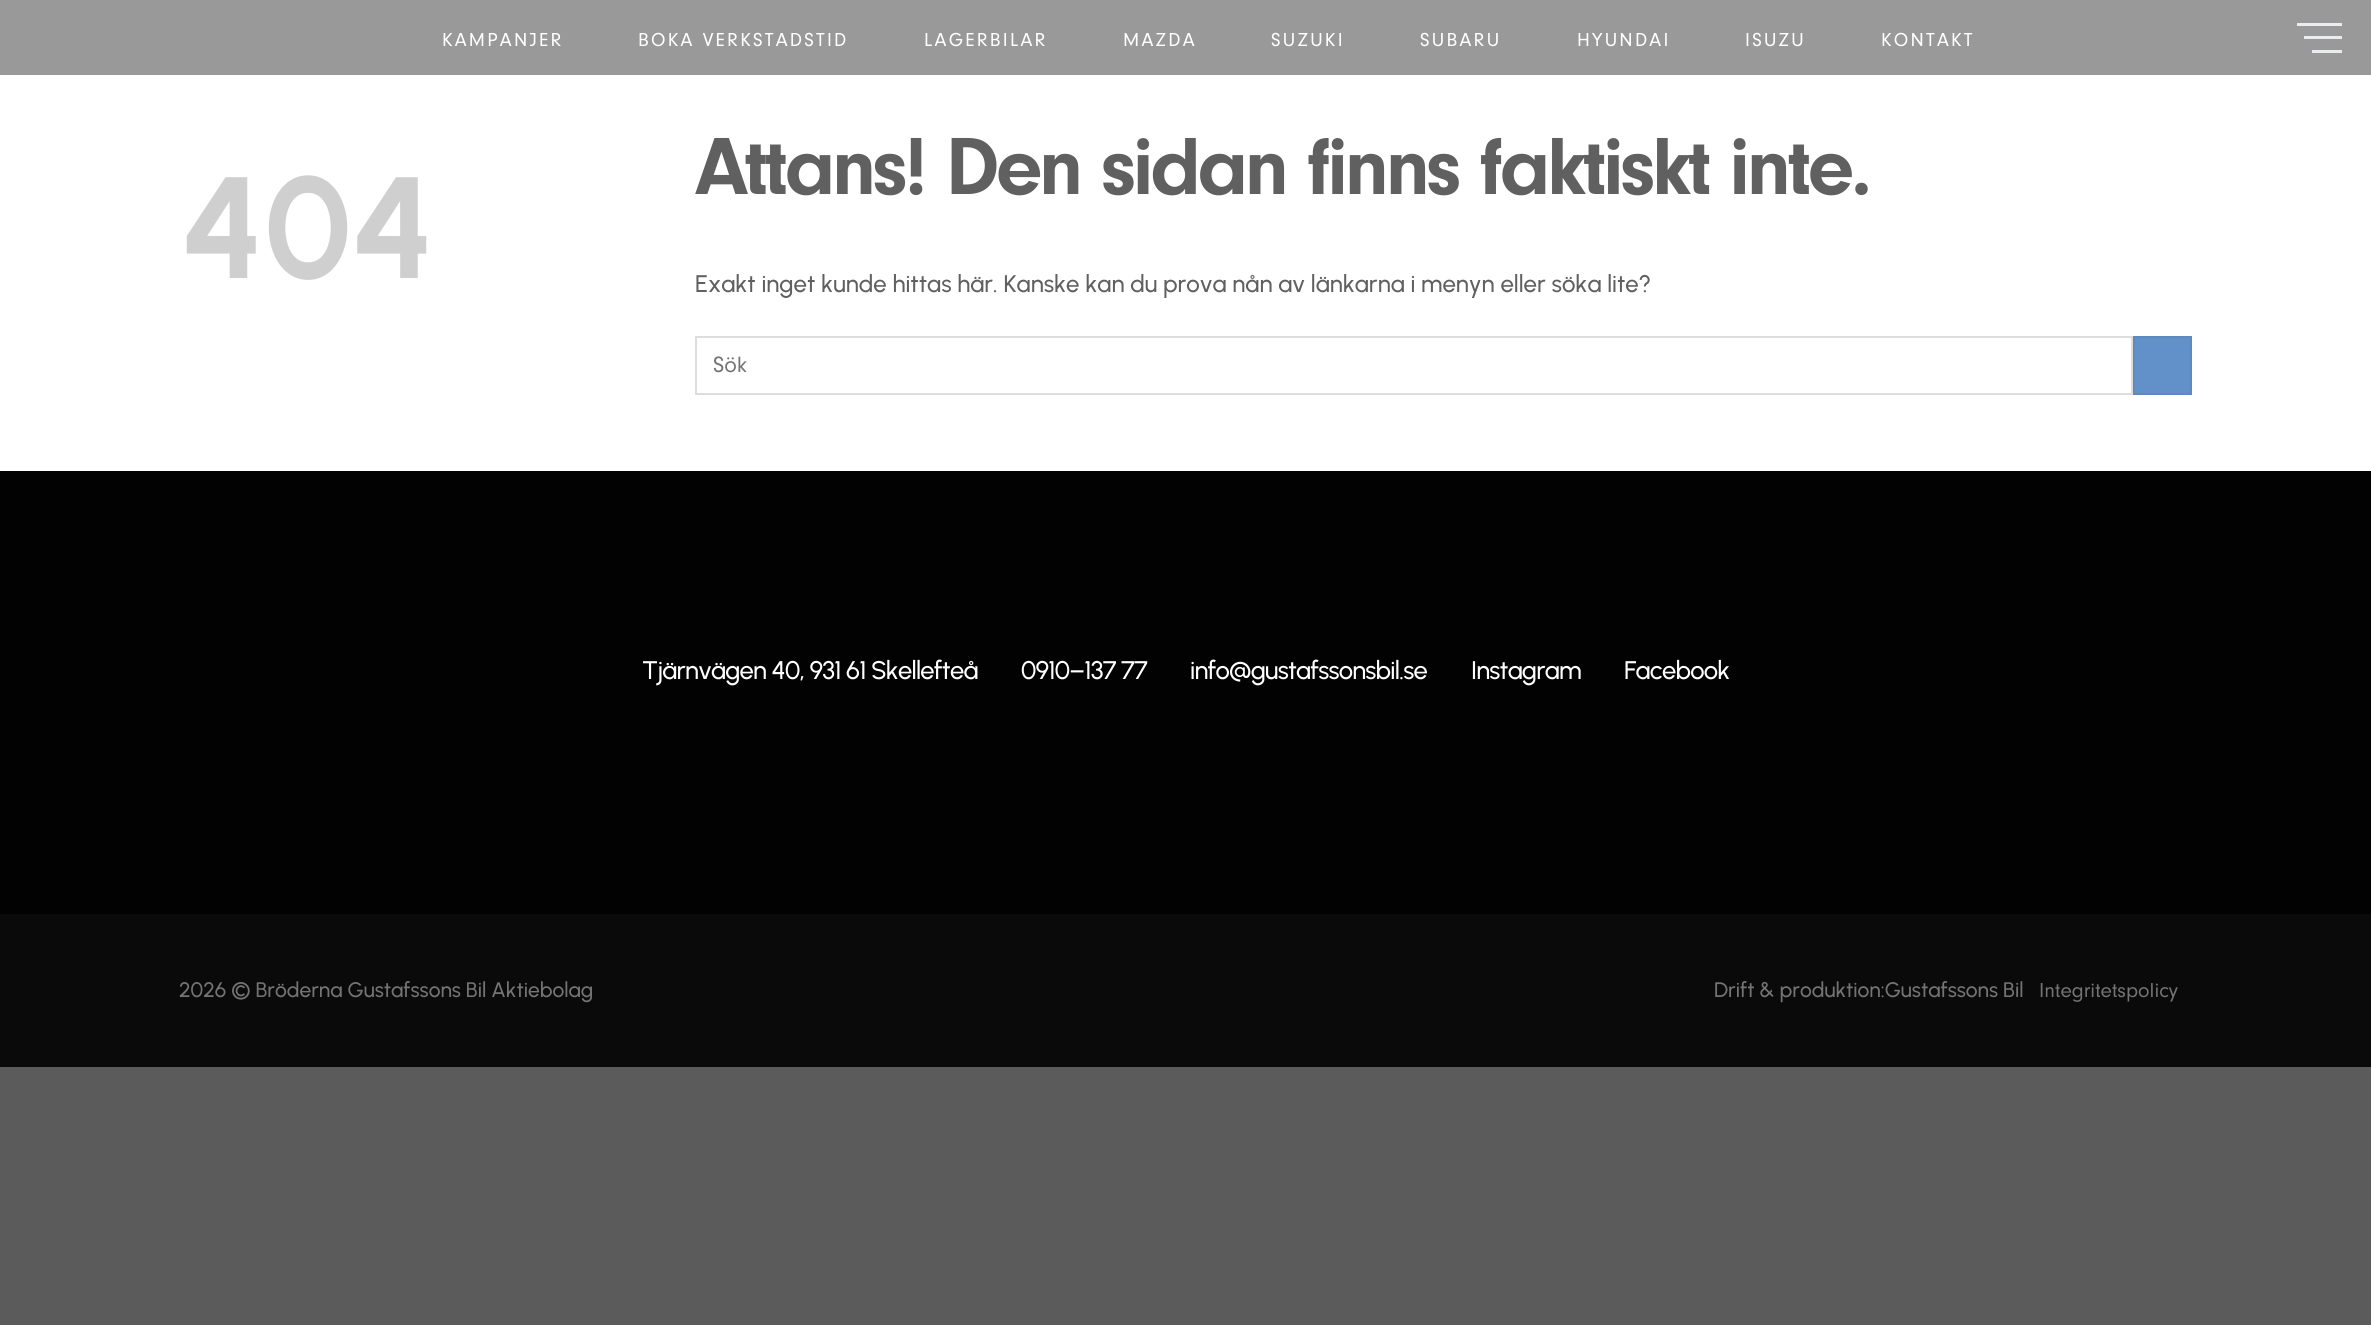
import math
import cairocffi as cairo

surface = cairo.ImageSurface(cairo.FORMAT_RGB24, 2371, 1325)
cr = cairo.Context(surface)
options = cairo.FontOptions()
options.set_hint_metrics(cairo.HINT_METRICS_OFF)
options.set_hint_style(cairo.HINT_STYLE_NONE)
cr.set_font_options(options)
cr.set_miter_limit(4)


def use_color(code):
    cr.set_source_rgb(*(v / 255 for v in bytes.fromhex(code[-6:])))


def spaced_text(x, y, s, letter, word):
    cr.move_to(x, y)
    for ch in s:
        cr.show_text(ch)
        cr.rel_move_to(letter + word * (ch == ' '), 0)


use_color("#5b5b5b")
cr.paint()
use_color("#ffffff")
cr.rectangle(0, 75, 2371, 396)
cr.fill()
use_color("#999999")
cr.rectangle(0, 0, 2371, 75)
cr.fill()
cr.select_font_face("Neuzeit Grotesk")
cr.set_font_size(19.5)
use_color("#ffffff")
spaced_text(442, 46, "KAMPANJER", 2.25, 0)
spaced_text(638, 46, "BOKA VERKSTADSTID", 2.25, 0)
spaced_text(924, 46, "LAGERBILAR", 2.25, 0)
spaced_text(1123, 46, "MAZDA", 2.25, 0)
spaced_text(1271, 46, "SUZUKI", 2.25, 0)
spaced_text(1420, 46, "SUBARU", 2.25, 0)
spaced_text(1577, 46, "HYUNDAI", 2.25, 0)
spaced_text(1745, 46, "ISUZU", 2.25, 0)
spaced_text(1881, 46, "KONTAKT", 2.25, 0)
cr.select_font_face("Urbanist", cairo.FONT_SLANT_NORMAL, cairo.FONT_WEIGHT_BOLD)
cr.set_font_size(144)
use_color("#cfcfcf")
cr.move_to(181, 278)
cr.show_text("404")
cr.select_font_face("Neuzeit Grotesk", cairo.FONT_SLANT_NORMAL, cairo.FONT_WEIGHT_BOLD)
cr.set_font_size(84)
use_color("#606060")
spaced_text(695, 194, "Attans! Den sidan finns faktiskt inte.", -3.75, 0)
cr.select_font_face("Urbanist Medium")
cr.set_font_size(24)
cr.move_to(695, 292)
cr.show_text("Exakt inget kunde hittas här. Kanske kan du prova nån av länkarna i menyn eller söka lite?")
cr.rectangle(696, 337, 1436, 57)
use_color("#dddddd")
cr.stroke()
cr.select_font_face("Neuzeit Grotesk")
cr.set_font_size(23)
use_color("#747474")
cr.move_to(713, 372)
cr.show_text("Sök")
use_color("#6290c8")
cr.rectangle(2134, 337, 57, 57)
cr.fill_preserve()
use_color("#5d89be")
cr.stroke()
use_color("#020202")
cr.rectangle(0, 471, 2371, 443)
cr.fill()
cr.select_font_face("Urbanist Medium")
cr.set_font_size(25.5)
use_color("#ffffff")
spaced_text(642, 679, "Tjärnvägen 40, 931 61 Skellefteå", -0.75, 0)
spaced_text(1021, 679, "0910–137 77", -0.75, 0)
spaced_text(1190, 679, "info@gustafssonsbil.se", -0.75, 0)
spaced_text(1471, 679, "Instagram", -0.75, 0)
spaced_text(1624, 679, "Facebook", -0.75, 0)
use_color("#0a0a0a")
cr.rectangle(0, 914, 2371, 153)
cr.fill()
cr.set_font_size(21)
use_color("#747474")
cr.move_to(179, 997)
cr.show_text("2026 © Bröderna Gustafssons Bil Aktiebolag")
cr.move_to(1714, 997)
cr.show_text("Drift & produktion:Gustafssons Bil")
cr.select_font_face("Neuzeit Grotesk")
cr.move_to(2039, 997)
cr.show_text("Integritetspolicy")
use_color("#ebecef")
cr.rectangle(2297, 23, 45, 3)
cr.fill()
cr.rectangle(2304, 36, 38, 3)
cr.fill()
cr.rectangle(2312, 50, 30, 3)
cr.fill()
surface.write_to_png("result.png")
